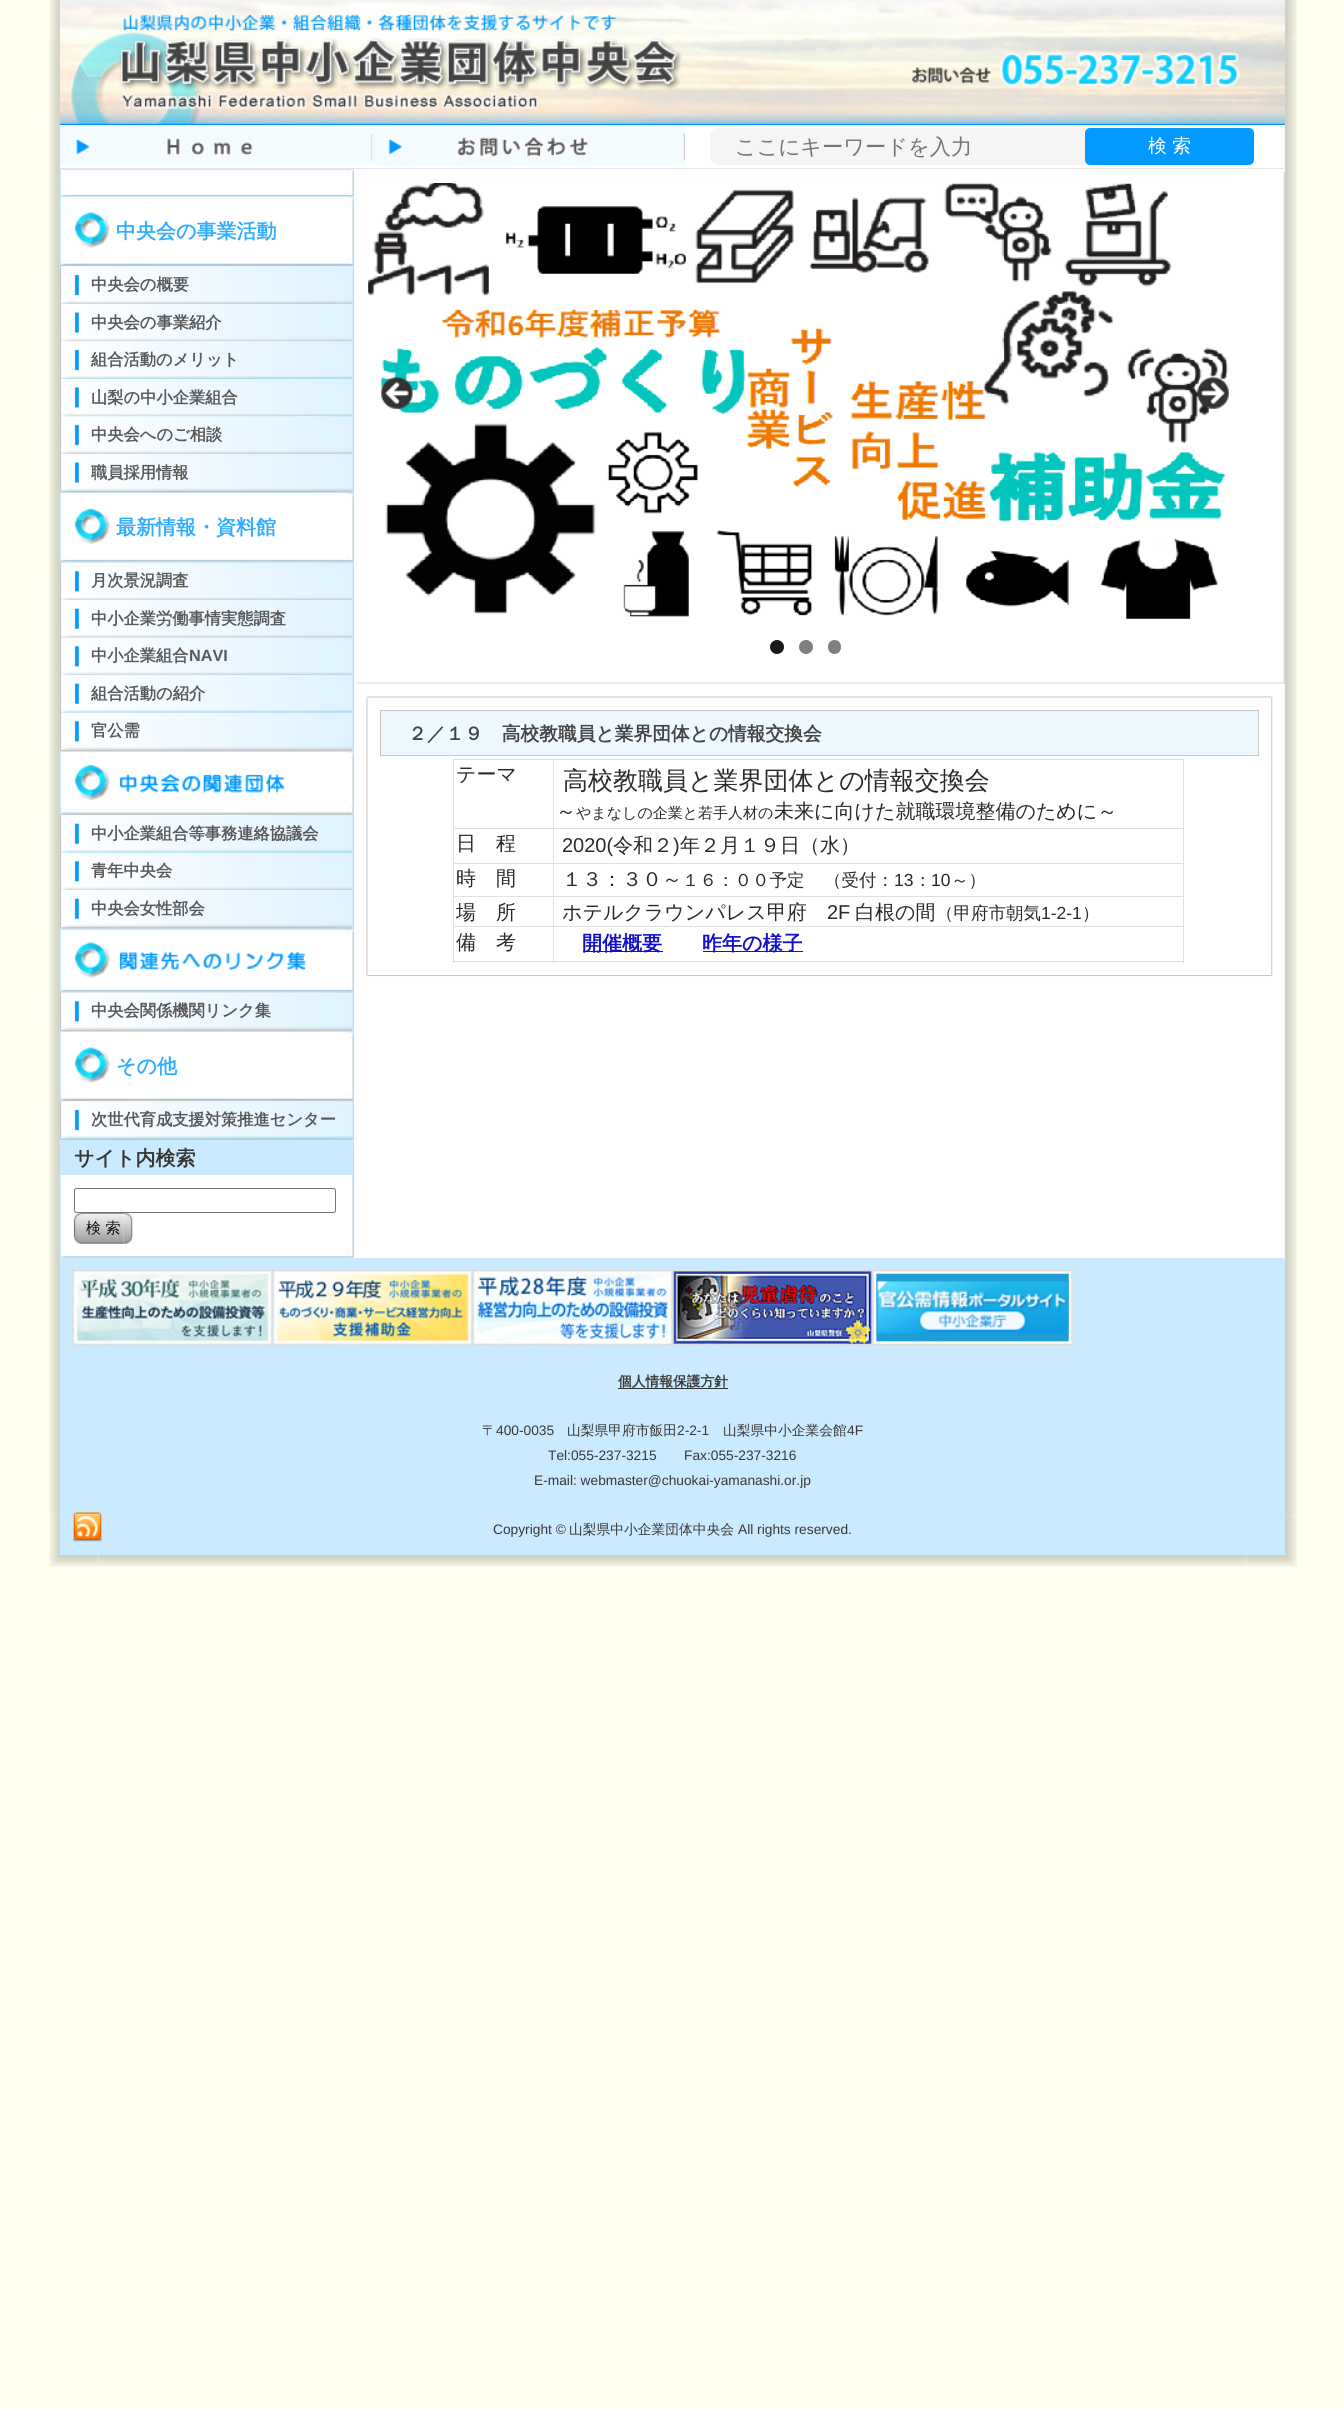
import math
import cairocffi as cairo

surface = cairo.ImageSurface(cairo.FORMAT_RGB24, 1344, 2409)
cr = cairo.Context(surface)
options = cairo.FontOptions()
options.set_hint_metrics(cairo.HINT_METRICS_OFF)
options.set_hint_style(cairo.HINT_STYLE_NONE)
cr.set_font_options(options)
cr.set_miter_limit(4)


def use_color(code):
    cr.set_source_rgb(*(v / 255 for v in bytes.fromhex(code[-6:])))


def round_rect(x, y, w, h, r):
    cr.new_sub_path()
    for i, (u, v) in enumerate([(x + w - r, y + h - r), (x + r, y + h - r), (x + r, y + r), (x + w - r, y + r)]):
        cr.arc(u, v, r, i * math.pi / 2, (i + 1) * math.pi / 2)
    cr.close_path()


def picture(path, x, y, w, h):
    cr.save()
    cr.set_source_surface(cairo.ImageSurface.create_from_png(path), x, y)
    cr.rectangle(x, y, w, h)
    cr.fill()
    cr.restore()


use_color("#ffffee")
cr.paint()
picture("img1.png", 49, 0, 11, 39)
picture("img2.png", 1285, 0, 12, 39)
picture("img3.png", 49, 39, 50, 1477)
use_color("#ffffff")
cr.rectangle(99, 125, 1147, 1133)
cr.fill()
picture("img4.png", 1246, 39, 51, 1477)
picture("img5.png", 60, 0, 1225, 125)
picture("img6.png", 60, 125, 313, 40)
picture("img7.png", 372, 125, 313, 40)
use_color("#f5f5f5")
cr.new_path()
cr.move_to(718, 128)
cr.line_to(1085, 128)
cr.line_to(1085, 165)
cr.line_to(718, 165)
cr.curve_to(713.5, 165, 710, 161.5, 710, 157)
cr.line_to(710, 136)
cr.curve_to(710, 131.5, 713.5, 128, 718, 128)
cr.close_path()
cr.fill()
cr.select_font_face("WenQuanYi Zen Hei Medium")
cr.set_font_size(21.25)
use_color("#757575")
cr.move_to(735, 154)
cr.show_text("ここにキーワードを入力")
use_color("#0499ff")
round_rect(1085, 128, 169, 37, 5)
cr.fill()
cr.set_font_size(18.75)
use_color("#ffffff")
cr.move_to(1148, 152)
cr.show_text("検 索")
use_color("#e5e5e5")
cr.rectangle(60, 168, 1225, 1)
cr.fill()
use_color("#caeaff")
cr.rectangle(60, 169, 294, 1089)
cr.fill()
use_color("#ffffff")
cr.rectangle(61, 170, 6, 5)
cr.fill()
picture("img9.png", 347, 170, 7, 5)
picture("img8.png", 67, 169, 281, 6)
cr.rectangle(61, 175, 287, 15)
cr.fill()
picture("img10.png", 348, 175, 6, 15)
picture("img11.png", 61, 190, 6, 6)
picture("img13.png", 347, 190, 7, 6)
picture("img12.png", 66, 190, 282, 6)
cr.rectangle(61, 197, 287, 6)
cr.fill()
picture("img14.png", 348, 197, 6, 6)
cr.rectangle(61, 203, 5, 56)
cr.fill()
picture("img19.png", 347, 258, 7, 7)
picture("img15.png", 347, 202, 7, 57)
cr.rectangle(66, 203, 282, 56)
cr.fill()
picture("img16.png", 74, 212, 36, 36)
cr.select_font_face("WenQuanYi Zen Hei", cairo.FONT_SLANT_NORMAL, cairo.FONT_WEIGHT_BOLD)
cr.set_font_size(20)
use_color("#33adff")
cr.move_to(116, 238)
cr.show_text("中央会の事業活動")
picture("img17.png", 61, 259, 6, 6)
picture("img18.png", 66, 259, 282, 6)
picture("img20.png", 60, 265, 2, 2)
picture("img23.png", 352, 265, 2, 2)
picture("img21.png", 61, 265, 292, 1)
picture("img22.png", 60, 266, 1, 225)
use_color("#caeaff")
cr.rectangle(61, 266, 292, 1)
cr.fill()
picture("img24.png", 353, 266, 1, 225)
picture("img25.png", 61, 266, 274, 38)
picture("img26.png", 61, 266, 292, 38)
cr.set_font_size(16.25)
use_color("#595959")
cr.move_to(91, 290)
cr.show_text("中央会の概要")
picture("img27.png", 61, 303, 274, 39)
picture("img28.png", 61, 303, 292, 39)
cr.move_to(91, 328)
cr.show_text("中央会の事業紹介")
picture("img29.png", 61, 341, 274, 38)
picture("img30.png", 61, 341, 292, 38)
cr.move_to(91, 365)
cr.show_text("組合活動のメリット")
picture("img27.png", 61, 378, 274, 39)
picture("img28.png", 61, 378, 292, 39)
cr.move_to(91, 403)
cr.show_text("山梨の中小企業組合")
picture("img29.png", 61, 416, 274, 38)
picture("img30.png", 61, 416, 292, 38)
cr.move_to(91, 440)
cr.show_text("中央会へのご相談")
picture("img33.png", 60, 491, 2, 2)
picture("img35.png", 352, 491, 2, 2)
picture("img34.png", 61, 491, 292, 2)
picture("img31.png", 61, 453, 274, 39)
picture("img32.png", 61, 453, 292, 39)
cr.move_to(91, 478)
cr.show_text("職員採用情報")
use_color("#ffffff")
cr.rectangle(61, 493, 287, 6)
cr.fill()
picture("img36.png", 348, 493, 6, 6)
cr.rectangle(61, 499, 287, 56)
cr.fill()
picture("img37.png", 348, 499, 6, 56)
picture("img38.png", 74, 508, 36, 36)
cr.set_font_size(20)
use_color("#33adff")
cr.move_to(116, 534)
cr.show_text("最新情報・資料館")
picture("img11.png", 61, 555, 6, 6)
picture("img13.png", 347, 555, 7, 6)
picture("img39.png", 66, 555, 282, 6)
picture("img40.png", 60, 561, 2, 2)
picture("img43.png", 352, 561, 2, 2)
picture("img41.png", 61, 561, 292, 2)
picture("img42.png", 60, 562, 2, 188)
picture("img44.png", 352, 562, 2, 188)
use_color("#caeaff")
cr.rectangle(61, 563, 292, 187)
cr.fill()
picture("img45.png", 61, 562, 274, 38)
picture("img46.png", 61, 562, 292, 38)
cr.set_font_size(16.25)
use_color("#595959")
cr.move_to(91, 586)
cr.show_text("月次景況調査")
picture("img47.png", 61, 600, 274, 38)
picture("img48.png", 61, 600, 292, 38)
cr.move_to(91, 624)
cr.show_text("中小企業労働事情実態調査")
picture("img49.png", 61, 637, 274, 38)
picture("img50.png", 61, 637, 292, 38)
cr.move_to(91, 661)
cr.show_text("中小企業組合")
cr.select_font_face("Liberation Sans", cairo.FONT_SLANT_NORMAL, cairo.FONT_WEIGHT_BOLD)
cr.move_to(189, 661)
cr.show_text("NAVI")
picture("img47.png", 61, 675, 274, 38)
picture("img48.png", 61, 675, 292, 38)
cr.select_font_face("WenQuanYi Zen Hei", cairo.FONT_SLANT_NORMAL, cairo.FONT_WEIGHT_BOLD)
cr.move_to(91, 699)
cr.show_text("組合活動の紹介")
picture("img49.png", 61, 712, 274, 38)
picture("img50.png", 61, 712, 292, 38)
cr.move_to(91, 736)
cr.show_text("官公需")
picture("img51.png", 60, 750, 2, 2)
picture("img53.png", 352, 750, 2, 1)
picture("img52.png", 61, 750, 292, 2)
use_color("#ffffff")
cr.rectangle(61, 752, 287, 6)
cr.fill()
picture("img14.png", 348, 752, 6, 6)
cr.rectangle(61, 758, 5, 50)
cr.fill()
picture("img58.png", 347, 807, 7, 7)
picture("img54.png", 347, 757, 7, 51)
cr.rectangle(66, 758, 282, 50)
cr.fill()
picture("img55.png", 74, 765, 211, 35)
picture("img56.png", 61, 808, 6, 6)
picture("img57.png", 66, 808, 282, 6)
picture("img59.png", 60, 814, 2, 1)
picture("img61.png", 352, 814, 2, 1)
picture("img60.png", 61, 814, 292, 1)
picture("img64.png", 60, 927, 2, 2)
picture("img62.png", 60, 815, 1, 113)
picture("img47.png", 61, 815, 274, 38)
picture("img48.png", 61, 815, 292, 38)
use_color("#595959")
cr.move_to(91, 839)
cr.show_text("中小企業組合等事務連絡協議会")
picture("img49.png", 61, 852, 274, 38)
picture("img50.png", 61, 852, 292, 38)
cr.move_to(91, 876)
cr.show_text("青年中央会")
picture("img65.png", 352, 927, 2, 2)
use_color("#caeaff")
cr.rectangle(61, 927, 292, 1)
cr.fill()
picture("img47.png", 61, 890, 274, 38)
picture("img48.png", 61, 890, 292, 38)
use_color("#595959")
cr.move_to(91, 914)
cr.show_text("中央会女性部会")
picture("img63.png", 353, 815, 1, 113)
picture("img66.png", 61, 928, 292, 1)
use_color("#ffffff")
cr.rectangle(61, 930, 6, 5)
cr.fill()
picture("img9.png", 347, 930, 7, 5)
picture("img67.png", 67, 929, 281, 6)
cr.rectangle(61, 935, 287, 50)
cr.fill()
picture("img68.png", 348, 935, 6, 50)
picture("img69.png", 74, 942, 232, 36)
picture("img11.png", 61, 985, 6, 6)
picture("img13.png", 347, 985, 7, 6)
picture("img39.png", 66, 985, 282, 6)
picture("img40.png", 60, 991, 2, 2)
picture("img43.png", 352, 991, 2, 2)
picture("img41.png", 61, 991, 292, 2)
picture("img70.png", 60, 992, 2, 38)
picture("img71.png", 352, 992, 2, 38)
use_color("#caeaff")
cr.rectangle(61, 993, 292, 37)
cr.fill()
picture("img72.png", 61, 992, 274, 38)
picture("img73.png", 61, 992, 292, 38)
use_color("#595959")
cr.move_to(91, 1016)
cr.show_text("中央会関係機関リンク集")
picture("img51.png", 60, 1030, 2, 2)
picture("img53.png", 352, 1030, 2, 1)
picture("img52.png", 61, 1030, 292, 2)
use_color("#ffffff")
cr.rectangle(61, 1032, 287, 6)
cr.fill()
picture("img14.png", 348, 1032, 6, 6)
cr.rectangle(61, 1038, 5, 56)
cr.fill()
picture("img19.png", 347, 1093, 7, 7)
picture("img15.png", 347, 1037, 7, 57)
cr.rectangle(66, 1038, 282, 56)
cr.fill()
picture("img16.png", 74, 1047, 36, 36)
cr.set_font_size(20)
use_color("#33adff")
cr.move_to(116, 1073)
cr.show_text("その他")
picture("img17.png", 61, 1094, 6, 6)
picture("img18.png", 66, 1094, 282, 6)
picture("img20.png", 60, 1100, 2, 2)
picture("img23.png", 352, 1100, 2, 2)
picture("img21.png", 61, 1100, 292, 1)
picture("img76.png", 60, 1138, 2, 2)
picture("img74.png", 60, 1101, 1, 38)
picture("img77.png", 352, 1138, 2, 2)
use_color("#caeaff")
cr.rectangle(61, 1101, 292, 38)
cr.fill()
picture("img75.png", 353, 1101, 1, 38)
picture("img25.png", 61, 1101, 274, 38)
picture("img26.png", 61, 1101, 292, 38)
cr.set_font_size(16.25)
use_color("#595959")
cr.move_to(91, 1125)
cr.show_text("次世代育成支援対策推進センター")
picture("img78.png", 61, 1139, 292, 1)
picture("img79.png", 353, 1143, 1, 3)
cr.set_font_size(20)
use_color("#383838")
cr.move_to(74, 1165)
cr.show_text("サイト内検索")
picture("img82.png", 348, 1146, 6, 105)
use_color("#caeaff")
cr.rectangle(348, 1146, 5, 29)
cr.fill()
use_color("#ffffff")
cr.rectangle(61, 1175, 287, 76)
cr.fill()
round_rect(74.5, 1188.5, 261, 24, 2)
use_color("#767676")
cr.set_line_width(1)
cr.stroke()
picture("img80.png", 73, 1213, 51, 31)
picture("img81.png", 123, 1213, 10, 31)
cr.select_font_face("WenQuanYi Zen Hei Medium")
cr.set_font_size(15)
use_color("#0d0d0d")
cr.move_to(86, 1233)
cr.show_text("検 索")
picture("img83.png", 61, 1251, 6, 7)
picture("img85.png", 347, 1251, 7, 7)
picture("img84.png", 66, 1251, 282, 7)
use_color("#ffffff")
cr.rectangle(1246, 171, 1, 507)
cr.fill()
picture("img86.png", 1283, 171, 2, 4)
picture("img87.png", 368, 183, 860, 436)
picture("img88.png", 381, 377, 32, 32)
picture("img89.png", 1197, 377, 32, 32)
use_color("#1a1a1a")
cr.arc(777, 647, 7, 0, 2 * math.pi)
cr.fill()
use_color("#808080")
cr.arc(806, 647, 7, 0, 2 * math.pi)
cr.fill()
round_rect(828, 640, 13, 14, 6.5)
cr.fill()
picture("img93.png", 1278, 677, 7, 7)
picture("img90.png", 1283, 175, 2, 503)
picture("img91.png", 356, 682, 4, 2)
picture("img92.png", 360, 678, 919, 6)
picture("img94.png", 366, 696, 2, 2)
picture("img95.png", 367, 696, 904, 2)
picture("img96.png", 1271, 696, 2, 2)
picture("img97.png", 366, 697, 2, 278)
use_color("#ffffff")
cr.rectangle(1246, 698, 1, 277)
cr.fill()
use_color("#eef9ff")
cr.rectangle(380.5, 710.5, 878, 45)
cr.fill_preserve()
use_color("#c7c7c7")
cr.stroke()
cr.select_font_face("WenQuanYi Zen Hei", cairo.FONT_SLANT_NORMAL, cairo.FONT_WEIGHT_BOLD)
cr.set_font_size(18.75)
use_color("#454545")
cr.move_to(408, 740)
cr.show_text("２／１９　高校教職員と業界団体との情報交換会")
use_color("#e0e0e0")
cr.rectangle(553, 759, 631, 1)
cr.fill()
cr.rectangle(553, 828, 631, 1)
cr.fill()
cr.rectangle(553, 863, 631, 1)
cr.fill()
cr.rectangle(553, 896, 631, 1)
cr.fill()
cr.rectangle(553, 926, 631, 1)
cr.fill()
cr.rectangle(1183, 926, 1, 37)
cr.fill()
cr.rectangle(553, 961, 631, 1)
cr.fill()
cr.rectangle(553, 926, 1, 37)
cr.fill()
cr.rectangle(453, 926, 101, 1)
cr.fill()
cr.rectangle(553, 896, 1, 32)
cr.fill()
cr.rectangle(453, 896, 101, 1)
cr.fill()
cr.rectangle(553, 863, 1, 35)
cr.fill()
cr.rectangle(453, 863, 101, 1)
cr.fill()
cr.rectangle(553, 828, 1, 36)
cr.fill()
cr.rectangle(453, 828, 101, 1)
cr.fill()
cr.rectangle(553, 759, 1, 70)
cr.fill()
cr.rectangle(453, 759, 101, 1)
cr.fill()
cr.rectangle(453, 961, 101, 1)
cr.fill()
cr.rectangle(453, 926, 1, 37)
cr.fill()
cr.rectangle(453, 896, 1, 32)
cr.fill()
cr.rectangle(453, 863, 1, 35)
cr.fill()
cr.rectangle(453, 828, 1, 36)
cr.fill()
cr.rectangle(453, 759, 1, 70)
cr.fill()
cr.select_font_face("WenQuanYi Zen Hei Medium")
cr.set_font_size(20)
use_color("#292929")
cr.move_to(456, 781)
cr.show_text("テーマ")
use_color("#e0e0e0")
cr.rectangle(1183, 896, 1, 32)
cr.fill()
cr.rectangle(1183, 863, 1, 35)
cr.fill()
cr.rectangle(1183, 828, 1, 36)
cr.fill()
cr.rectangle(1183, 759, 1, 70)
cr.fill()
cr.set_font_size(25)
use_color("#292929")
cr.move_to(563, 789)
cr.show_text("高校教職員と業界団体との情報交換会")
cr.set_font_size(20)
cr.move_to(556, 818)
cr.show_text("～")
cr.set_font_size(15)
cr.move_to(576, 818)
cr.show_text("やまなしの企業と若手人材の")
cr.set_font_size(20)
cr.move_to(774, 818)
cr.show_text("未来に向けた就職環境整備のために～")
cr.move_to(456, 850)
cr.show_text("日　程")
cr.select_font_face("Liberation Sans")
cr.move_to(562, 852)
cr.show_text("2020(")
cr.select_font_face("WenQuanYi Zen Hei Medium")
cr.move_to(613, 852)
cr.show_text("令和２")
cr.select_font_face("Liberation Sans")
cr.move_to(673, 852)
cr.show_text(")")
cr.select_font_face("WenQuanYi Zen Hei Medium")
cr.move_to(680, 852)
cr.show_text("年２月１９日（水）")
cr.move_to(456, 885)
cr.show_text("時　間")
cr.move_to(562, 886)
cr.show_text("１３：３０～")
cr.set_font_size(17.5)
cr.move_to(682, 886)
cr.show_text("１６：００予定")
cr.move_to(824, 886)
cr.show_text("（受付：")
cr.select_font_face("Liberation Sans")
cr.move_to(894, 886)
cr.show_text("13")
cr.select_font_face("WenQuanYi Zen Hei Medium")
cr.move_to(914, 886)
cr.show_text("：")
cr.select_font_face("Liberation Sans")
cr.move_to(931, 886)
cr.show_text("10")
cr.select_font_face("WenQuanYi Zen Hei Medium")
cr.move_to(951, 886)
cr.show_text("～）")
cr.set_font_size(20)
cr.move_to(456, 919)
cr.show_text("場　所")
cr.move_to(562, 919)
cr.show_text("ホテルクラウンパレス甲府")
cr.select_font_face("Liberation Sans")
cr.move_to(827, 919)
cr.show_text("2F")
cr.select_font_face("WenQuanYi Zen Hei Medium")
cr.move_to(855, 919)
cr.show_text("白根の間")
cr.set_font_size(17.5)
cr.move_to(936, 919)
cr.show_text("（甲府市朝気")
cr.select_font_face("Liberation Sans")
cr.move_to(1041, 919)
cr.show_text("1-2-1")
cr.select_font_face("WenQuanYi Zen Hei Medium")
cr.move_to(1082, 919)
cr.show_text("）")
cr.set_font_size(20)
cr.move_to(456, 949)
cr.show_text("備　考")
use_color("#1111cc")
cr.rectangle(583, 951, 80, 1)
cr.fill()
cr.select_font_face("WenQuanYi Zen Hei", cairo.FONT_SLANT_NORMAL, cairo.FONT_WEIGHT_BOLD)
cr.move_to(582, 950)
cr.show_text("開催概要")
cr.rectangle(703, 951, 100, 1)
cr.fill()
cr.move_to(702, 950)
cr.show_text("昨年の様子")
picture("img98.png", 1271, 697, 2, 278)
picture("img99.png", 366, 975, 2, 1)
picture("img100.png", 367, 975, 904, 2)
picture("img101.png", 1271, 975, 2, 1)
picture("img108.png", 49, 1516, 50, 51)
picture("img110.png", 1246, 1516, 51, 51)
use_color("#caeaff")
cr.rectangle(60, 1258, 1225, 297)
cr.fill()
picture("img102.png", 72, 1270, 201, 75)
picture("img103.png", 272, 1270, 201, 75)
picture("img104.png", 472, 1270, 201, 75)
picture("img105.png", 672, 1270, 201, 75)
picture("img106.png", 872, 1270, 201, 75)
picture("img107.png", 72, 1512, 31, 30)
use_color("#333333")
cr.rectangle(618, 1388, 110, 1)
cr.fill()
cr.set_font_size(13.75)
use_color("#383838")
cr.move_to(618, 1386)
cr.show_text("個人情報保護方針")
cr.select_font_face("WenQuanYi Zen Hei Medium")
cr.move_to(482, 1435)
cr.show_text("〒")
cr.select_font_face("Liberation Sans")
cr.move_to(496, 1435)
cr.show_text("400-0035")
cr.select_font_face("WenQuanYi Zen Hei Medium")
cr.move_to(567, 1435)
cr.show_text("山梨県甲府市飯田")
cr.select_font_face("Liberation Sans")
cr.move_to(677, 1435)
cr.show_text("2-2-1")
cr.select_font_face("WenQuanYi Zen Hei Medium")
cr.move_to(723, 1435)
cr.show_text("山梨県中小企業会館")
cr.select_font_face("Liberation Sans")
cr.move_to(847, 1435)
cr.show_text("4F")
cr.move_to(548, 1460)
cr.show_text("Tel:055-237-3215")
cr.move_to(684, 1460)
cr.show_text("Fax:055-237-3216")
cr.move_to(534, 1485)
cr.show_text("E-mail: webmaster@chuokai-yamanashi.or.jp")
cr.move_to(493, 1534)
cr.show_text("Copyright ©")
cr.select_font_face("WenQuanYi Zen Hei Medium")
cr.move_to(569, 1534)
cr.show_text("山梨県中小企業団体中央会")
cr.select_font_face("Liberation Sans")
cr.move_to(738, 1534)
cr.show_text("All rights reserved.")
picture("img109.png", 99, 1555, 1147, 12)
surface.write_to_png("result.png")
